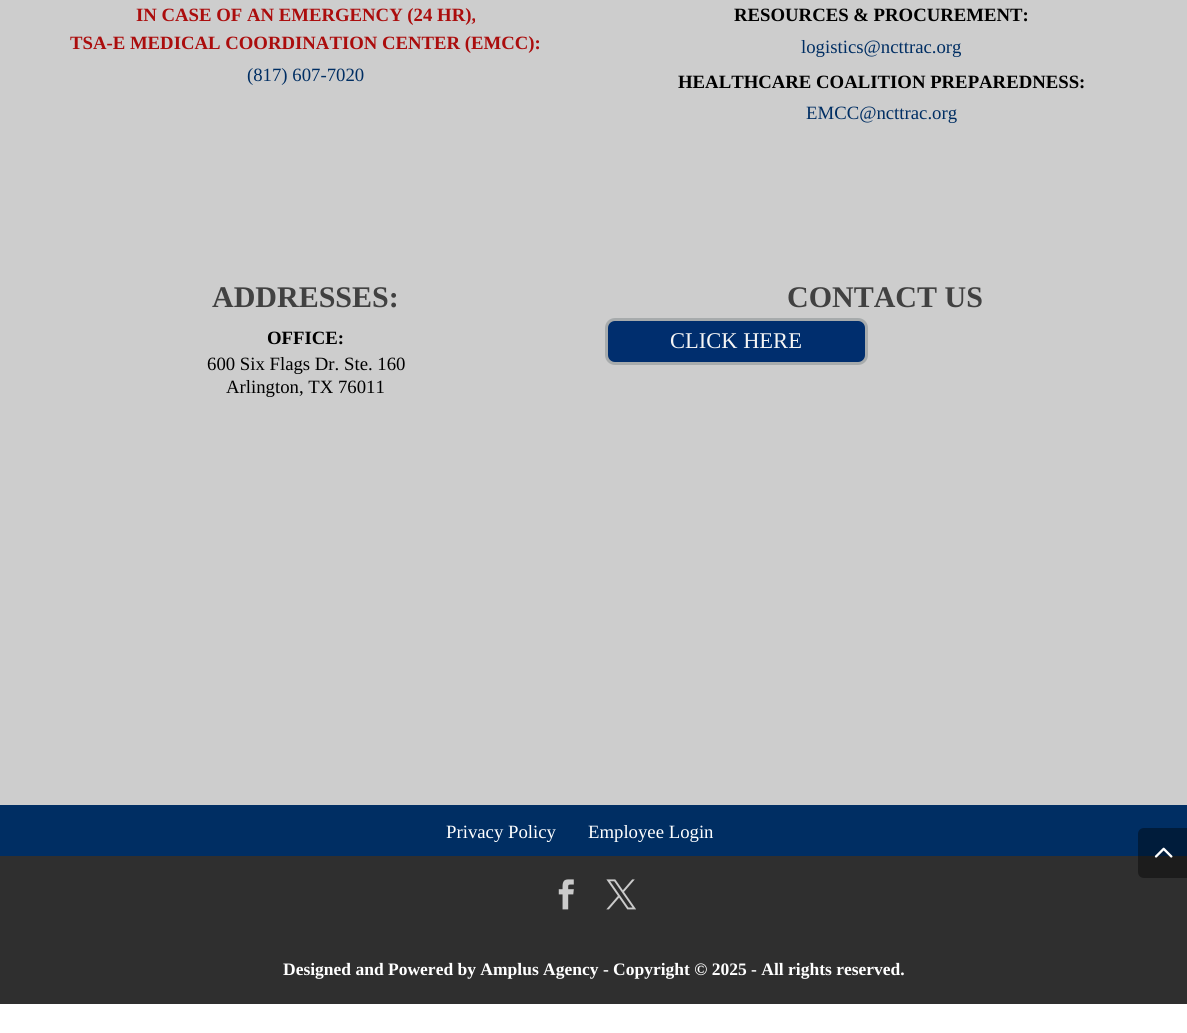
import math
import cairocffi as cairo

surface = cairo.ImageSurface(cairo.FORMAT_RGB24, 1187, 1033)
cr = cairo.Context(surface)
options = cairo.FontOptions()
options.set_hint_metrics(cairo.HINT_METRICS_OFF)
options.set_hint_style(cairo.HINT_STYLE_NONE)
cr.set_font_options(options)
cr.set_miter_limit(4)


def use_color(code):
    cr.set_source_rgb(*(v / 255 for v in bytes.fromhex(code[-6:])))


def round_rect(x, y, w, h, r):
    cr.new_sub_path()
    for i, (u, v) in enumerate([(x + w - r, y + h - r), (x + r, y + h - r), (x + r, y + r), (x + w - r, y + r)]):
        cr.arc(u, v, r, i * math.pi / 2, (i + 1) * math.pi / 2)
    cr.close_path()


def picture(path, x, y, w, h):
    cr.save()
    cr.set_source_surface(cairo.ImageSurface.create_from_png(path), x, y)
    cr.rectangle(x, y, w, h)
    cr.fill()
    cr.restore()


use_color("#ffffff")
cr.paint()
use_color("#cdcdcd")
cr.rectangle(0, 0, 1187, 805)
cr.fill()
cr.select_font_face("Liberation Serif", cairo.FONT_SLANT_NORMAL, cairo.FONT_WEIGHT_BOLD)
cr.set_font_size(18.75)
use_color("#ab0d0d")
cr.move_to(136, 21)
cr.show_text("IN CASE OF AN EMERGENCY (24 HR),")
cr.move_to(70, 49)
cr.show_text("TSA-E MEDICAL COORDINATION CENTER (EMCC):")
cr.select_font_face("Liberation Serif")
use_color("#002e63")
cr.move_to(247, 81)
cr.show_text("(817) 607-7020")
cr.select_font_face("Liberation Serif", cairo.FONT_SLANT_NORMAL, cairo.FONT_WEIGHT_BOLD)
use_color("#000000")
cr.move_to(734, 21)
cr.show_text("RESOURCES & PROCUREMENT:")
cr.select_font_face("Liberation Serif")
use_color("#002e63")
cr.move_to(801, 53)
cr.show_text("logistics@ncttrac.org")
cr.select_font_face("Liberation Serif", cairo.FONT_SLANT_NORMAL, cairo.FONT_WEIGHT_BOLD)
use_color("#000000")
cr.move_to(678, 88)
cr.show_text("HEALTHCARE COALITION PREPAREDNESS:")
cr.select_font_face("Liberation Serif")
use_color("#002e63")
cr.move_to(806, 119)
cr.show_text("EMCC@ncttrac.org")
cr.select_font_face("Liberation Serif", cairo.FONT_SLANT_NORMAL, cairo.FONT_WEIGHT_BOLD)
cr.set_font_size(30)
use_color("#414141")
cr.move_to(212, 307)
cr.show_text("ADDRESSES:")
cr.set_font_size(18.75)
use_color("#000000")
cr.move_to(267, 344)
cr.show_text("OFFICE:")
cr.select_font_face("Liberation Serif")
cr.move_to(207, 370)
cr.show_text("600 Six Flags Dr. Ste. 160")
cr.move_to(226, 393)
cr.show_text("Arlington, TX 76011")
cr.select_font_face("Liberation Serif", cairo.FONT_SLANT_NORMAL, cairo.FONT_WEIGHT_BOLD)
cr.set_font_size(30)
use_color("#414141")
cr.move_to(787, 307)
cr.show_text("CONTACT US")
use_color("#002e6e")
round_rect(606.5, 319.5, 260, 44, 8.5)
cr.fill_preserve()
use_color("#a7abac")
cr.set_line_width(3)
cr.stroke()
cr.select_font_face("Liberation Serif")
cr.set_font_size(22.5)
use_color("#f5f5f5")
cr.move_to(670, 348)
cr.show_text("CLICK HERE")
use_color("#002e63")
cr.rectangle(0, 805, 1187, 51)
cr.fill()
cr.set_font_size(18.75)
use_color("#ffffff")
cr.move_to(446, 838)
cr.show_text("Privacy Policy")
cr.move_to(588, 838)
cr.show_text("Employee Login")
use_color("#2f2f2f")
cr.rectangle(0, 856, 1187, 148)
cr.fill()
picture("img1.png", 558, 879, 16, 31)
picture("img2.png", 606, 879, 30, 31)
cr.select_font_face("Liberation Serif", cairo.FONT_SLANT_NORMAL, cairo.FONT_WEIGHT_BOLD)
cr.set_font_size(17.5)
use_color("#ffffff")
cr.move_to(283, 975)
cr.show_text("Designed and Powered by Amplus Agency - Copyright © 2025 - All rights reserved.")
cr.set_source_rgba(0, 0, 0, 0.4)
cr.new_path()
cr.move_to(1144, 828)
cr.line_to(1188, 828)
cr.line_to(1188, 878)
cr.line_to(1144, 878)
cr.curve_to(1140.5, 878, 1138, 875.5, 1138, 872)
cr.line_to(1138, 834)
cr.curve_to(1138, 830.5, 1140.5, 828, 1144, 828)
cr.close_path()
cr.fill()
picture("img3.png", 1154, 847, 19, 11)
surface.write_to_png("result.png")
